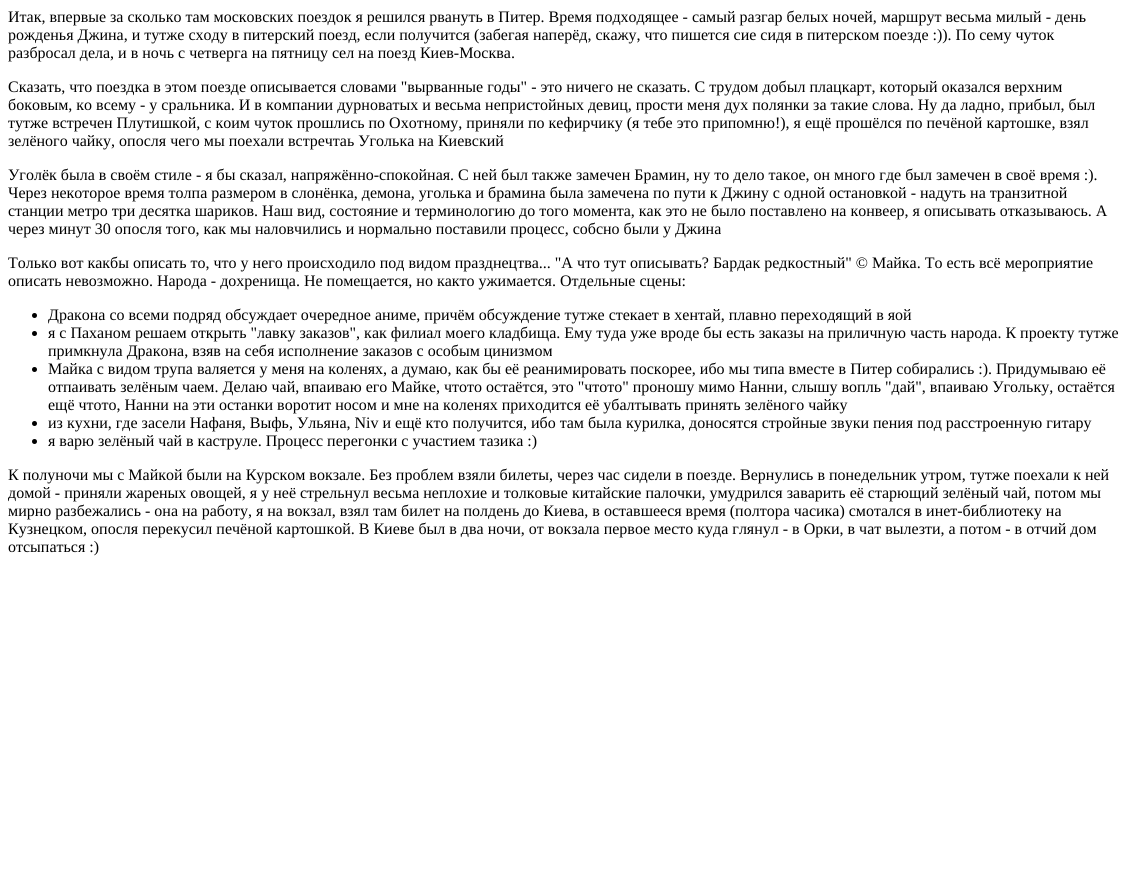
import math
import cairocffi as cairo

surface = cairo.ImageSurface(cairo.FORMAT_RGB24, 1132, 893)
cr = cairo.Context(surface)
options = cairo.FontOptions()
options.set_hint_metrics(cairo.HINT_METRICS_OFF)
options.set_hint_style(cairo.HINT_STYLE_NONE)
cr.set_font_options(options)
cr.set_miter_limit(4)


def use_color(code):
    cr.set_source_rgb(*(v / 255 for v in bytes.fromhex(code[-6:])))


use_color("#ffffff")
cr.paint()
cr.select_font_face("Liberation Serif")
cr.set_font_size(16)
use_color("#000000")
cr.move_to(8, 22)
cr.show_text("Итак, впервые за сколько там московских поездок я решился рвануть в Питер. Время подходящее - самый разгар белых ночей, маршрут весьма милый - день")
cr.move_to(8, 40)
cr.show_text("рожденья Джина, и тутже сходу в питерский поезд, если получится (забегая наперёд, скажу, что пишется сие сидя в питерском поезде :)). По сему чуток")
cr.move_to(8, 58)
cr.show_text("разбросал дела, и в ночь с четверга на пятницу сел на поезд Киев-Москва.")
cr.move_to(8, 92)
cr.show_text("Сказать, что поездка в этом поезде описывается словами \"вырванные годы\" - это ничего не сказать. С трудом добыл плацкарт, который оказался верхним")
cr.move_to(8, 110)
cr.show_text("боковым, ко всему - у сральника. И в компании дурноватых и весьма непристойных девиц, прости меня дух полянки за такие слова. Ну да ладно, прибыл, был")
cr.move_to(8, 128)
cr.show_text("тутже встречен Плутишкой, с коим чуток прошлись по Охотному, приняли по кефирчику (я тебе это припомню!), я ещё прошёлся по печёной картошке, взял")
cr.move_to(8, 146)
cr.show_text("зелёного чайку, опосля чего мы поехали встречтаь Уголька на Киевский")
cr.move_to(8, 180)
cr.show_text("Уголёк была в своём стиле - я бы сказал, напряжённо-спокойная. С ней был также замечен Брамин, ну то дело такое, он много где был замечен в своё время :).")
cr.move_to(8, 198)
cr.show_text("Через некоторое время толпа размером в слонёнка, демона, уголька и брамина была замечена по пути к Джину с одной остановкой - надуть на транзитной")
cr.move_to(8, 216)
cr.show_text("станции метро три десятка шариков. Наш вид, состояние и терминологию до того момента, как это не было поставлено на конвеер, я описывать отказываюсь. А")
cr.move_to(8, 234)
cr.show_text("через минут 30 опосля того, как мы наловчились и нормально поставили процесс, собсно были у Джина")
cr.move_to(8, 268)
cr.show_text("Только вот какбы описать то, что у него происходило под видом празднецтва... \"А что тут описывать? Бардак редкостный\" © Майка. То есть всё мероприятие")
cr.move_to(8, 286)
cr.show_text("описать невозможно. Народа - дохренища. Не помещается, но както ужимается. Отдельные сцены:")
cr.new_path()
cr.arc(34.5, 315.5, 2.5, 0, 2 * math.pi)
cr.fill()
cr.move_to(48, 320)
cr.show_text("Дракона со всеми подряд обсуждает очередное аниме, причём обсуждение тутже стекает в хентай, плавно переходящий в яой")
cr.new_path()
cr.arc(34.5, 333.5, 2.5, 0, 2 * math.pi)
cr.fill()
cr.move_to(48, 338)
cr.show_text("я с Паханом решаем открыть \"лавку заказов\", как филиал моего кладбища. Ему туда уже вроде бы есть заказы на приличную часть народа. К проекту тутже")
cr.move_to(48, 356)
cr.show_text("примкнула Дракона, взяв на себя исполнение заказов с особым цинизмом")
cr.new_path()
cr.arc(34.5, 369.5, 2.5, 0, 2 * math.pi)
cr.fill()
cr.move_to(48, 374)
cr.show_text("Майка с видом трупа валяется у меня на коленях, а думаю, как бы её реанимировать поскорее, ибо мы типа вместе в Питер собирались :). Придумываю её")
cr.move_to(48, 392)
cr.show_text("отпаивать зелёным чаем. Делаю чай, впаиваю его Майке, чтото остаётся, это \"чтото\" проношу мимо Нанни, слышу вопль \"дай\", впаиваю Угольку, остаётся")
cr.move_to(48, 410)
cr.show_text("ещё чтото, Нанни на эти останки воротит носом и мне на коленях приходится её убалтывать принять зелёного чайку")
cr.new_path()
cr.arc(34.5, 423.5, 2.5, 0, 2 * math.pi)
cr.fill()
cr.move_to(48, 428)
cr.show_text("из кухни, где засели Нафаня, Выфь, Ульяна, Niv и ещё кто получится, ибо там была курилка, доносятся стройные звуки пения под расстроенную гитару")
cr.new_path()
cr.arc(34.5, 441.5, 2.5, 0, 2 * math.pi)
cr.fill()
cr.move_to(48, 446)
cr.show_text("я варю зелёный чай в каструле. Процесс перегонки с участием тазика :)")
cr.move_to(8, 480)
cr.show_text("К полуночи мы с Майкой были на Курском вокзале. Без проблем взяли билеты, через час сидели в поезде. Вернулись в понедельник утром, тутже поехали к ней")
cr.move_to(8, 498)
cr.show_text("домой - приняли жареных овощей, я у неё стрельнул весьма неплохие и толковые китайские палочки, умудрился заварить её старющий зелёный чай, потом мы")
cr.move_to(8, 516)
cr.show_text("мирно разбежались - она на работу, я на вокзал, взял там билет на полдень до Киева, в оставшееся время (полтора часика) смотался в инет-библиотеку на")
cr.move_to(8, 534)
cr.show_text("Кузнецком, опосля перекусил печёной картошкой. В Киеве был в два ночи, от вокзала первое место куда глянул - в Орки, в чат вылезти, а потом - в отчий дом")
cr.move_to(8, 552)
cr.show_text("отсыпаться :)")
surface.write_to_png("result.png")
